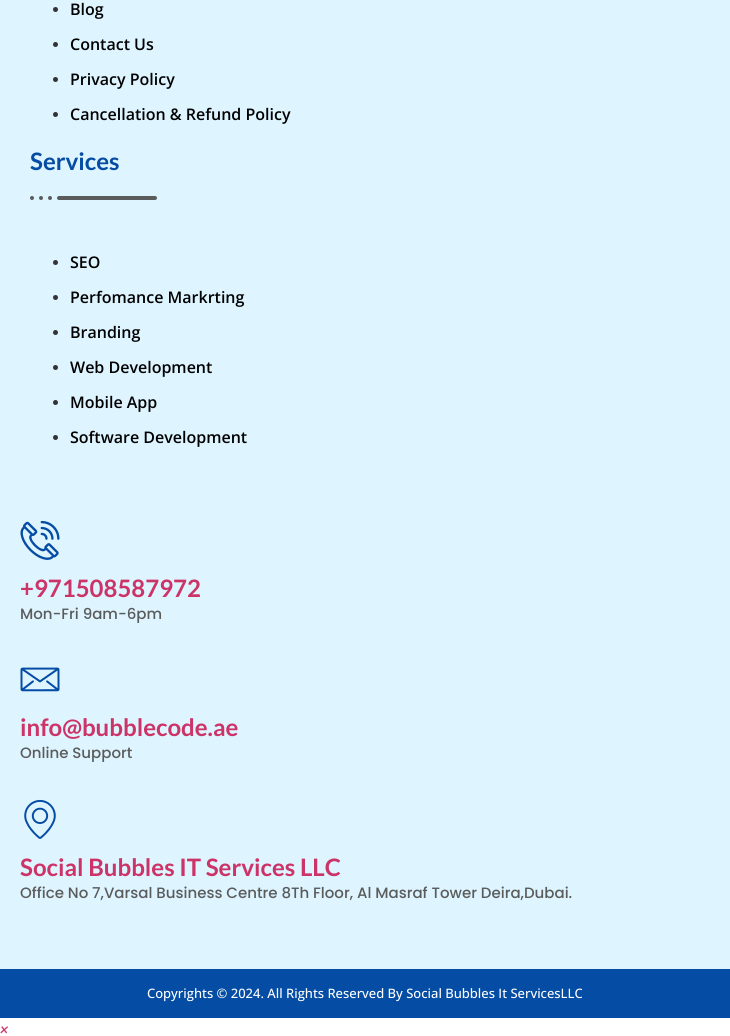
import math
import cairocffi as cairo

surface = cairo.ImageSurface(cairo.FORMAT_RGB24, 730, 1036)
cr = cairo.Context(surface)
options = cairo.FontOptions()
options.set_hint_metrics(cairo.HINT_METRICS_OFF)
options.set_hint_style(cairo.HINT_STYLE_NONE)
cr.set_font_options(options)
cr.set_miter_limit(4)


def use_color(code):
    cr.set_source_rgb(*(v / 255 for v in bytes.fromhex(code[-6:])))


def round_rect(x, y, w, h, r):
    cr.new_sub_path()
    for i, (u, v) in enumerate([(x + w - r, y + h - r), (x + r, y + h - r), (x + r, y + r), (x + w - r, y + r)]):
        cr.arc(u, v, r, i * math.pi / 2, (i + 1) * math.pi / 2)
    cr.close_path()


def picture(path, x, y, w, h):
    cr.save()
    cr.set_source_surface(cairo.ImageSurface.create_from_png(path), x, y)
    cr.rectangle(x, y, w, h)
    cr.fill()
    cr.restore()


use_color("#ffffff")
cr.paint()
use_color("#def4ff")
cr.rectangle(0, 0, 730, 969)
cr.fill()
use_color("#333333")
cr.arc(55.5, 9.5, 2.5, 0, 2 * math.pi)
cr.fill()
cr.select_font_face("Open Sans SemiBold")
cr.set_font_size(16)
use_color("#000000")
cr.move_to(70, 15)
cr.show_text("Blog")
use_color("#333333")
cr.new_path()
cr.arc(55.5, 44.5, 2.5, 0, 2 * math.pi)
cr.fill()
use_color("#000000")
cr.move_to(70, 50)
cr.show_text("Contact Us")
use_color("#333333")
cr.new_path()
cr.arc(55.5, 79.5, 2.5, 0, 2 * math.pi)
cr.fill()
use_color("#000000")
cr.move_to(70, 85)
cr.show_text("Privacy Policy")
use_color("#333333")
cr.new_path()
cr.arc(55.5, 114.5, 2.5, 0, 2 * math.pi)
cr.fill()
use_color("#000000")
cr.move_to(70, 120)
cr.show_text("Cancellation & Refund Policy")
cr.select_font_face("Lato", cairo.FONT_SLANT_NORMAL, cairo.FONT_WEIGHT_BOLD)
cr.set_font_size(24)
use_color("#044ca4")
cr.move_to(30, 170)
cr.show_text("Services")
use_color("#5a5c5c")
round_rect(57, 196, 100, 4, 2)
cr.fill()
cr.arc(50, 198, 2, 0, 2 * math.pi)
cr.fill()
cr.arc(41, 198, 2, 0, 2 * math.pi)
cr.fill()
cr.arc(32, 198, 2, 0, 2 * math.pi)
cr.fill()
use_color("#333333")
cr.arc(55.5, 262.5, 2.5, 0, 2 * math.pi)
cr.fill()
cr.select_font_face("Open Sans SemiBold")
cr.set_font_size(16)
use_color("#000000")
cr.move_to(70, 268)
cr.show_text("SEO")
use_color("#333333")
cr.new_path()
cr.arc(55.5, 297.5, 2.5, 0, 2 * math.pi)
cr.fill()
use_color("#000000")
cr.move_to(70, 303)
cr.show_text("Perfomance Markrting")
use_color("#333333")
cr.new_path()
cr.arc(55.5, 332.5, 2.5, 0, 2 * math.pi)
cr.fill()
use_color("#000000")
cr.move_to(70, 338)
cr.show_text("Branding")
use_color("#333333")
cr.new_path()
cr.arc(55.5, 367.5, 2.5, 0, 2 * math.pi)
cr.fill()
use_color("#000000")
cr.move_to(70, 373)
cr.show_text("Web Development")
use_color("#333333")
cr.new_path()
cr.arc(55.5, 402.5, 2.5, 0, 2 * math.pi)
cr.fill()
use_color("#000000")
cr.move_to(70, 408)
cr.show_text("Mobile App")
use_color("#333333")
cr.new_path()
cr.arc(55.5, 437.5, 2.5, 0, 2 * math.pi)
cr.fill()
use_color("#000000")
cr.move_to(70, 443)
cr.show_text("Software Development")
picture("img1.png", 20, 520, 40, 40)
cr.select_font_face("Lato", cairo.FONT_SLANT_NORMAL, cairo.FONT_WEIGHT_BOLD)
cr.set_font_size(24)
use_color("#cc3366")
cr.move_to(20, 597)
cr.show_text("+971508587972")
cr.select_font_face("Poppins Medium")
cr.set_font_size(15)
use_color("#5a5c5c")
cr.move_to(20, 619)
cr.show_text("Mon-Fri 9am-6pm")
picture("img2.png", 20, 667, 40, 25)
cr.select_font_face("Lato", cairo.FONT_SLANT_NORMAL, cairo.FONT_WEIGHT_BOLD)
cr.set_font_size(24)
use_color("#cc3366")
cr.move_to(20, 736)
cr.show_text("info@bubblecode.ae")
cr.select_font_face("Poppins Medium")
cr.set_font_size(15)
use_color("#5a5c5c")
cr.move_to(20, 758)
cr.show_text("Online Support")
picture("img3.png", 24, 799, 32, 40)
cr.select_font_face("Lato", cairo.FONT_SLANT_NORMAL, cairo.FONT_WEIGHT_BOLD)
cr.set_font_size(24)
use_color("#cc3366")
cr.move_to(20, 876)
cr.show_text("Social Bubbles IT Services LLC")
cr.select_font_face("Poppins Medium")
cr.set_font_size(15)
use_color("#5a5c5c")
cr.move_to(20, 898)
cr.show_text("Office No 7,Varsal Business Centre 8Th Floor, Al Masraf Tower Deira,Dubai.")
use_color("#044ca4")
cr.rectangle(0, 969, 730, 49)
cr.fill()
cr.select_font_face("Open Sans Medium")
cr.set_font_size(13)
use_color("#ffffff")
cr.move_to(147, 998)
cr.show_text("Copyrights © 2024. All Rights Reserved By Social Bubbles It ServicesLLC")
cr.select_font_face("Roboto", cairo.FONT_SLANT_ITALIC)
cr.set_font_size(16)
use_color("#cc3366")
cr.move_to(0, 1035)
cr.show_text("×")
surface.write_to_png("result.png")
